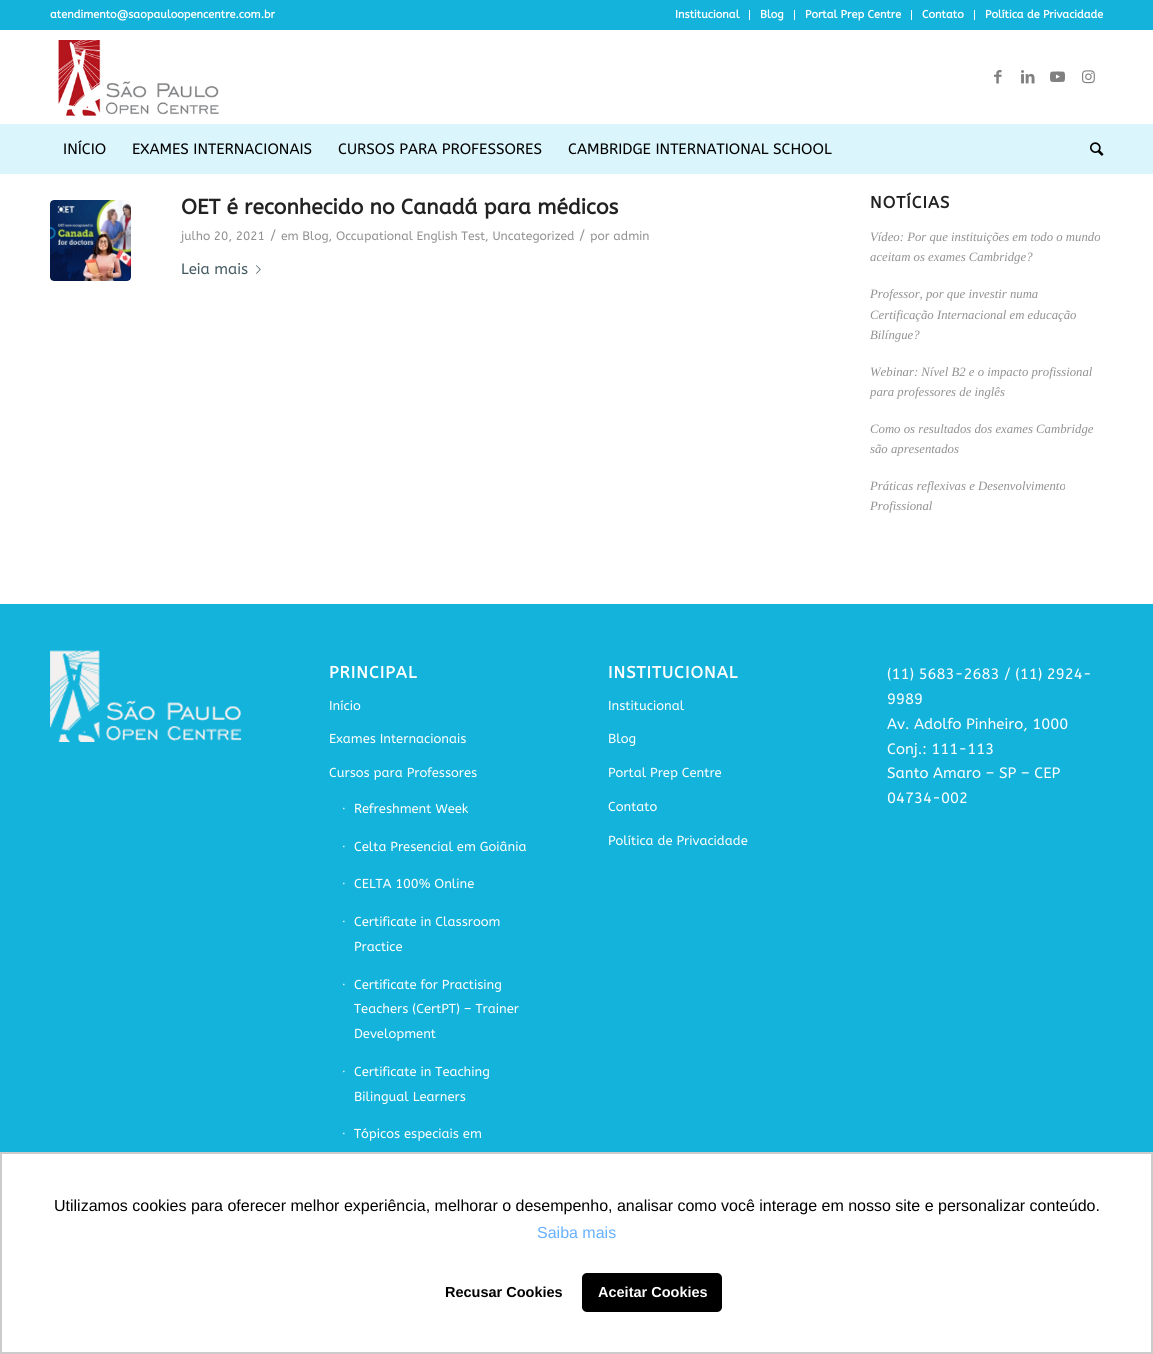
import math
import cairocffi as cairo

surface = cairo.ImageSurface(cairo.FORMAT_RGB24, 1153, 1354)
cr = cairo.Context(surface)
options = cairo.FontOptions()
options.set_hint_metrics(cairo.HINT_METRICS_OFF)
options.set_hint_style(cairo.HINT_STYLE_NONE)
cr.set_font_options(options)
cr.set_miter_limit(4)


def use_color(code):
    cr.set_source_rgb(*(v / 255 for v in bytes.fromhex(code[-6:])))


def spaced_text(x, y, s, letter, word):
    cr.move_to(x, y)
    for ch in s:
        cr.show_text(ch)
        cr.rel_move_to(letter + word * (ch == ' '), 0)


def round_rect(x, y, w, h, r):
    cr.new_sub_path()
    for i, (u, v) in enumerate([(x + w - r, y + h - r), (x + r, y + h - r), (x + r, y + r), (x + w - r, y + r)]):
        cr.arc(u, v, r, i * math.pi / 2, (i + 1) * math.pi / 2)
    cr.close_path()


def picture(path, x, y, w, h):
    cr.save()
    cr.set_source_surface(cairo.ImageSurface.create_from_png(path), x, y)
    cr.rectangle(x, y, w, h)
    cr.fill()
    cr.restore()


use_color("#ffffff")
cr.paint()
use_color("#13b3db")
cr.rectangle(0, 0, 1153, 30)
cr.fill()
cr.select_font_face("ABeeZee", cairo.FONT_SLANT_NORMAL, cairo.FONT_WEIGHT_BOLD)
cr.set_font_size(11)
use_color("#ffffff")
cr.move_to(50, 18)
cr.show_text("atendimento@saopauloopencentre.com.br")
cr.rectangle(749, 10, 1, 10)
cr.fill()
cr.move_to(675, 18)
cr.show_text("Institucional")
cr.rectangle(794, 10, 1, 10)
cr.fill()
cr.move_to(760, 18)
cr.show_text("Blog")
cr.rectangle(911, 10, 1, 10)
cr.fill()
cr.move_to(805, 18)
cr.show_text("Portal Prep Centre")
cr.rectangle(974, 10, 1, 10)
cr.fill()
cr.move_to(922, 18)
cr.show_text("Contato")
cr.move_to(985, 18)
cr.show_text("Política de Privacidade")
picture("img1.png", 58, 40, 161, 76)
picture("img2.png", 994, 70, 8, 14)
picture("img3.png", 1021, 70, 14, 14)
picture("img4.png", 1050, 71, 15, 11)
picture("img5.png", 1082, 70, 13, 14)
use_color("#daf5fc")
cr.rectangle(0, 124, 1153, 50)
cr.fill()
cr.select_font_face("ABeeZee")
cr.set_font_size(15)
use_color("#000000")
cr.move_to(63, 154)
cr.show_text("INÍCIO")
cr.move_to(132, 154)
cr.show_text("EXAMES INTERNACIONAIS")
cr.move_to(338, 154)
cr.show_text("CURSOS PARA PROFESSORES")
cr.move_to(568, 154)
cr.show_text("CAMBRIDGE INTERNATIONAL SCHOOL")
picture("img6.png", 1090, 142, 14, 14)
picture("img7.png", 50, 200, 81, 81)
cr.select_font_face("ABeeZee", cairo.FONT_SLANT_NORMAL, cairo.FONT_WEIGHT_BOLD)
cr.set_font_size(21)
use_color("#222222")
cr.move_to(181, 214)
cr.show_text("OET é reconhecido no Canadá para médicos")
cr.select_font_face("ABeeZee")
cr.set_font_size(12.15)
use_color("#919191")
cr.move_to(181, 240)
cr.show_text("julho 20, 2021")
cr.set_font_size(14)
cr.move_to(270, 240)
cr.show_text("/")
cr.set_font_size(12.15)
cr.move_to(281, 240)
cr.show_text("em Blog, Occupational English Test, Uncategorized")
cr.set_font_size(14)
cr.move_to(579, 240)
cr.show_text("/")
cr.set_font_size(12.15)
cr.move_to(590, 240)
cr.show_text("por admin")
cr.set_font_size(15)
use_color("#435960")
cr.move_to(181, 274)
cr.show_text("Leia mais")
picture("img8.png", 256, 265, 5, 9)
cr.select_font_face("ABeeZee", cairo.FONT_SLANT_NORMAL, cairo.FONT_WEIGHT_BOLD)
cr.set_font_size(16.5)
use_color("#222222")
spaced_text(870, 208, "NOTÍCIAS", 1, 0)
cr.select_font_face("Liberation Serif", cairo.FONT_SLANT_ITALIC)
cr.set_font_size(12.75)
use_color("#919191")
cr.move_to(870, 241)
cr.show_text("Vídeo: Por que instituições em todo o mundo")
cr.move_to(870, 261)
cr.show_text("aceitam os exames Cambridge?")
cr.move_to(870, 298)
cr.show_text("Professor, por que investir numa")
cr.move_to(870, 319)
cr.show_text("Certificação Internacional em educação")
cr.move_to(870, 339)
cr.show_text("Bilíngue?")
cr.move_to(870, 376)
cr.show_text("Webinar: Nível B2 e o impacto profissional")
cr.move_to(870, 396)
cr.show_text("para professores de inglês")
cr.move_to(870, 433)
cr.show_text("Como os resultados dos exames Cambridge")
cr.move_to(870, 453)
cr.show_text("são apresentados")
cr.move_to(870, 490)
cr.show_text("Práticas reflexivas e Desenvolvimento")
cr.move_to(870, 510)
cr.show_text("Profissional")
use_color("#13b3db")
cr.rectangle(0, 604, 1153, 548)
cr.fill()
picture("img9.png", 50, 650, 191, 92)
cr.select_font_face("ABeeZee", cairo.FONT_SLANT_NORMAL, cairo.FONT_WEIGHT_BOLD)
cr.set_font_size(16.5)
use_color("#ffffff")
spaced_text(329, 678, "PRINCIPAL", 1, 0)
cr.select_font_face("ABeeZee")
cr.set_font_size(13)
cr.move_to(329, 710)
cr.show_text("Início")
cr.move_to(329, 743)
cr.show_text("Exames Internacionais")
cr.move_to(329, 777)
cr.show_text("Cursos para Professores")
cr.select_font_face("Liberation Sans")
cr.move_to(342, 812)
cr.show_text("∙")
cr.select_font_face("ABeeZee")
cr.move_to(354, 813)
cr.show_text("Refreshment Week")
cr.select_font_face("Liberation Sans")
cr.move_to(342, 850)
cr.show_text("∙")
cr.select_font_face("ABeeZee")
cr.move_to(354, 851)
cr.show_text("Celta Presencial em Goiânia")
cr.select_font_face("Liberation Sans")
cr.move_to(342, 887)
cr.show_text("∙")
cr.select_font_face("ABeeZee")
cr.move_to(354, 888)
cr.show_text("CELTA 100% Online")
cr.select_font_face("Liberation Sans")
cr.move_to(342, 925)
cr.show_text("∙")
cr.select_font_face("ABeeZee")
cr.move_to(354, 926)
cr.show_text("Certificate in Classroom")
cr.move_to(354, 951)
cr.show_text("Practice")
cr.select_font_face("Liberation Sans")
cr.move_to(342, 988)
cr.show_text("∙")
cr.select_font_face("ABeeZee")
cr.move_to(354, 989)
cr.show_text("Certificate for Practising")
cr.move_to(354, 1013)
cr.show_text("Teachers (CertPT) – Trainer")
cr.move_to(354, 1038)
cr.show_text("Development")
cr.select_font_face("Liberation Sans")
cr.move_to(342, 1075)
cr.show_text("∙")
cr.select_font_face("ABeeZee")
cr.move_to(354, 1076)
cr.show_text("Certificate in Teaching")
cr.move_to(354, 1101)
cr.show_text("Bilingual Learners")
cr.select_font_face("Liberation Sans")
cr.move_to(342, 1137)
cr.show_text("∙")
cr.select_font_face("ABeeZee")
cr.move_to(354, 1138)
cr.show_text("Tópicos especiais em")
cr.select_font_face("ABeeZee", cairo.FONT_SLANT_NORMAL, cairo.FONT_WEIGHT_BOLD)
cr.set_font_size(16.5)
spaced_text(608, 678, "INSTITUCIONAL", 1, 0)
cr.select_font_face("ABeeZee")
cr.set_font_size(13)
cr.move_to(608, 710)
cr.show_text("Institucional")
cr.move_to(608, 743)
cr.show_text("Blog")
cr.move_to(608, 777)
cr.show_text("Portal Prep Centre")
cr.move_to(608, 811)
cr.show_text("Contato")
cr.move_to(608, 845)
cr.show_text("Política de Privacidade")
cr.set_font_size(15)
cr.move_to(887, 679)
cr.show_text("(11) 5683-2683 / (11) 2924-")
cr.move_to(887, 704)
cr.show_text("9989")
cr.move_to(887, 729)
cr.show_text("Av. Adolfo Pinheiro, 1000")
cr.move_to(887, 754)
cr.show_text("Conj.: 111-113")
cr.move_to(887, 778)
cr.show_text("Santo Amaro – SP – CEP")
cr.move_to(887, 803)
cr.show_text("04734-002")
cr.rectangle(1, 1153, 1151, 200)
use_color("#cccccc")
cr.stroke()
cr.select_font_face("Liberation Sans")
cr.set_font_size(16)
use_color("#000000")
cr.move_to(54, 1211)
cr.show_text("Utilizamos cookies para oferecer melhor experiência, melhorar o desempenho, analisar como você interage em nosso site e personalizar conteúdo.")
use_color("#66b0ff")
cr.move_to(537, 1238)
cr.show_text("Saiba mais")
cr.select_font_face("Liberation Sans", cairo.FONT_SLANT_NORMAL, cairo.FONT_WEIGHT_BOLD)
cr.set_font_size(14.5)
use_color("#000000")
cr.move_to(445, 1297)
cr.show_text("Recusar Cookies")
round_rect(582, 1273, 140, 39, 5)
cr.fill()
use_color("#ffffff")
cr.move_to(598, 1297)
cr.show_text("Aceitar Cookies")
surface.write_to_png("result.png")
